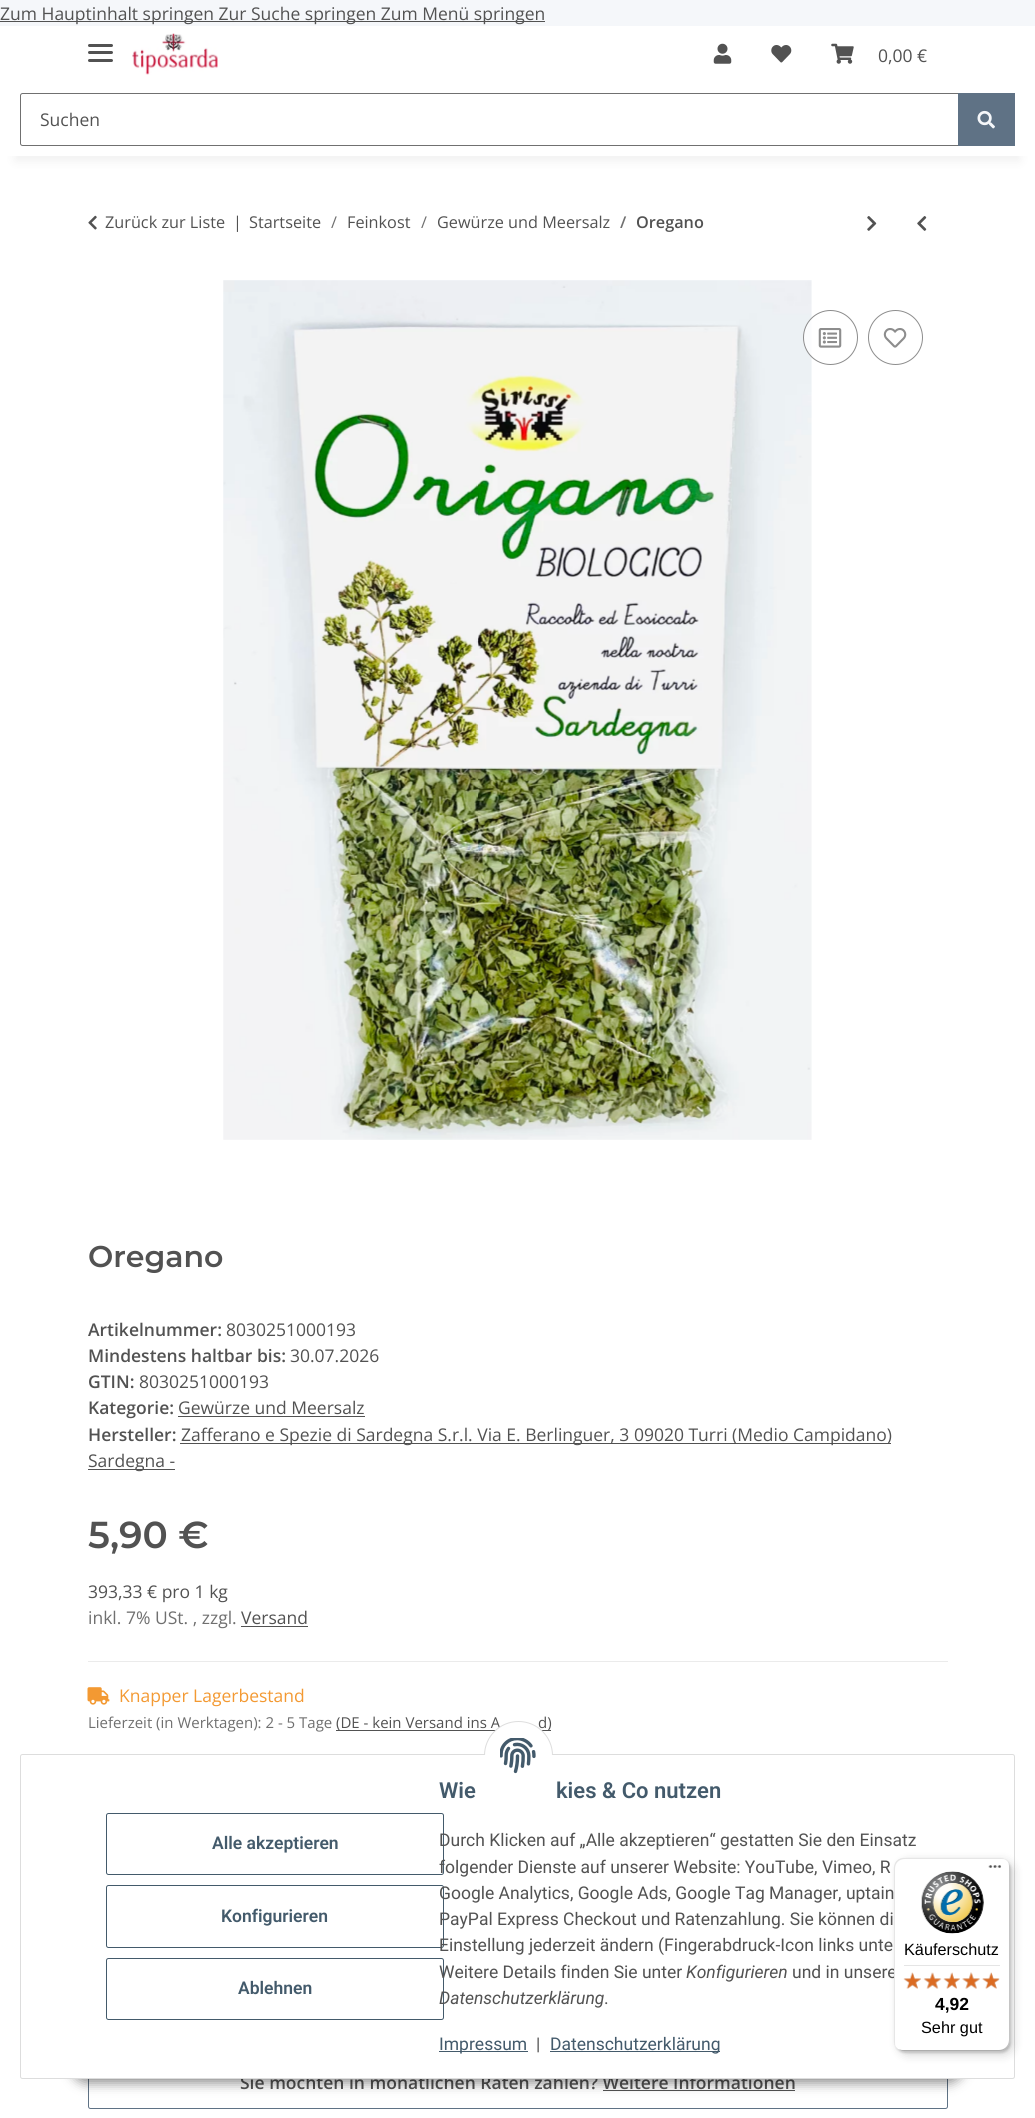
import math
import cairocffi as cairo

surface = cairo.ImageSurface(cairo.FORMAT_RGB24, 1035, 2118)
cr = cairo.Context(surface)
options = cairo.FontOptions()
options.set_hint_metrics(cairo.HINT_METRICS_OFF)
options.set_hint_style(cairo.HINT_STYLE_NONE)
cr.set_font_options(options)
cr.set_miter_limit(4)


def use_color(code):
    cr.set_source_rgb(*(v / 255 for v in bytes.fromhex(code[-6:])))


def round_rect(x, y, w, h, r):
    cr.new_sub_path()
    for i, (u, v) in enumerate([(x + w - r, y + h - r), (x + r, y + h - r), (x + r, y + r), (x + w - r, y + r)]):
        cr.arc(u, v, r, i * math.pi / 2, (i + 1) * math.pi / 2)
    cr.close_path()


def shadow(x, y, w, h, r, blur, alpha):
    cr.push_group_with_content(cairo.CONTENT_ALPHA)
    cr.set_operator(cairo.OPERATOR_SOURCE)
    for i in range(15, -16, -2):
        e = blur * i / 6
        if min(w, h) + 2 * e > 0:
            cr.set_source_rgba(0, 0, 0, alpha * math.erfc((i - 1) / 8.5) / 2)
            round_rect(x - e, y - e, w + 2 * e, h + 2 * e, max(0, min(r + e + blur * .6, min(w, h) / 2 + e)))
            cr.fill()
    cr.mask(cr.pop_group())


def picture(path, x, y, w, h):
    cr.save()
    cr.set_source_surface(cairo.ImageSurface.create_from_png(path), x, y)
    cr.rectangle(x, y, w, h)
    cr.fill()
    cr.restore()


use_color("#f5f7fa")
cr.paint()
use_color("#525252")
cr.rectangle(0, 21, 545, 1)
cr.fill()
cr.select_font_face("Open Sans")
cr.set_font_size(17.5)
cr.move_to(0, 20)
cr.show_text("Zum Hauptinhalt springen Zur Suche springen Zum Menü springen")
use_color("#ffffff")
cr.rectangle(0, 156, 1035, 1962)
cr.fill()
use_color("#000000")
shadow(15, 61, 1005, 100, 0, 5.5, 0.06)
use_color("#ffffff")
cr.rectangle(0, 26, 1035, 130)
cr.fill()
use_color("#525252")
round_rect(88, 51, 25, 3, 1.5)
cr.fill()
round_rect(88, 44, 25, 3, 1.5)
cr.fill()
round_rect(88, 59, 25, 3, 1.5)
cr.fill()
picture("img1.png", 132, 33, 86, 42)
picture("img2.png", 713, 43, 19, 21)
picture("img3.png", 771, 45, 21, 18)
picture("img4.png", 831, 43, 23, 21)
cr.move_to(878, 62)
cr.show_text("0,00 €")
cr.new_path()
cr.move_to(22.5, 93.5)
cr.line_to(958.5, 93.5)
cr.line_to(958.5, 145.5)
cr.line_to(22.5, 145.5)
cr.curve_to(21.5, 145.5, 20.5, 144.5, 20.5, 143.5)
cr.line_to(20.5, 95.5)
cr.curve_to(20.5, 94.5, 21.5, 93.5, 22.5, 93.5)
cr.close_path()
use_color("#707070")
cr.set_line_width(1)
cr.stroke()
use_color("#525252")
cr.move_to(40, 126)
cr.show_text("Suchen")
use_color("#5f7285")
cr.rectangle(958, 93, 57, 53)
cr.fill()
picture("img5.png", 977, 110, 18, 19)
picture("img6.png", 88, 215, 9, 15)
cr.set_font_size(16.25)
use_color("#525252")
cr.move_to(105, 228)
cr.show_text("Zurück zur Liste")
cr.move_to(233, 228)
cr.show_text("|")
cr.move_to(249, 228)
cr.show_text("Startseite")
use_color("#707070")
cr.move_to(331, 228)
cr.show_text("/")
use_color("#525252")
cr.move_to(347, 228)
cr.show_text("Feinkost")
use_color("#707070")
cr.move_to(421, 228)
cr.show_text("/")
use_color("#525252")
cr.move_to(437, 228)
cr.show_text("Gewürze und Meersalz")
cr.select_font_face("Open Sans SemiBold")
use_color("#707070")
cr.move_to(620, 228)
cr.show_text("/")
use_color("#525252")
cr.move_to(636, 228)
cr.show_text("Oregano")
picture("img7.png", 867, 216, 10, 15)
picture("img8.png", 917, 216, 10, 15)
picture("img9.png", 223, 280, 589, 860)
cr.set_source_rgba(1, 1, 1, 0.8)
cr.arc(830.5, 337.5, 27.5, 0, 2 * math.pi)
cr.fill()
cr.arc(830.5, 337.5, 27, 0, 2 * math.pi)
cr.set_source_rgba(0.439, 0.439, 0.439, 0.8)
cr.stroke()
picture("img10.png", 818, 328, 24, 20)
cr.arc(895.5, 337.5, 27, 0, 2 * math.pi)
use_color("#8d8d8d")
cr.stroke()
picture("img11.png", 883, 328, 24, 20)
cr.select_font_face("Montserrat SemiBold")
cr.set_font_size(30)
use_color("#525252")
cr.move_to(88, 1267)
cr.show_text("Oregano")
cr.select_font_face("Open Sans SemiBold")
cr.set_font_size(17.5)
cr.move_to(88, 1336)
cr.show_text("Artikelnummer:")
cr.select_font_face("Open Sans")
cr.move_to(226, 1336)
cr.show_text("8030251000193")
cr.select_font_face("Open Sans SemiBold")
cr.move_to(88, 1362)
cr.show_text("Mindestens haltbar bis:")
cr.select_font_face("Open Sans")
cr.move_to(290, 1362)
cr.show_text("30.07.2026")
cr.select_font_face("Open Sans SemiBold")
cr.move_to(88, 1388)
cr.show_text("GTIN:")
cr.select_font_face("Open Sans")
cr.move_to(139, 1388)
cr.show_text("8030251000193")
cr.select_font_face("Open Sans SemiBold")
cr.move_to(88, 1414)
cr.show_text("Kategorie:")
cr.select_font_face("Open Sans")
cr.move_to(178, 1414)
cr.show_text("Gewürze und Meersalz")
cr.rectangle(178, 1416, 187, 1)
cr.fill()
cr.select_font_face("Open Sans SemiBold")
cr.move_to(88, 1441)
cr.show_text("Hersteller:")
cr.rectangle(180, 1443, 711, 1)
cr.fill()
cr.select_font_face("Open Sans")
cr.move_to(181, 1441)
cr.show_text("Zafferano e Spezie di Sardegna S.r.l. Via E. Berlinguer, 3 09020 Turri (Medio Campidano)")
cr.rectangle(88, 1469, 87, 1)
cr.fill()
cr.move_to(88, 1467)
cr.show_text("Sardegna -")
cr.select_font_face("Montserrat SemiBold")
cr.set_font_size(37.5)
cr.move_to(88, 1548)
cr.show_text("5,90 €")
cr.select_font_face("Open Sans")
cr.set_font_size(17.5)
cr.move_to(88, 1598)
cr.show_text("393,33 € pro 1 kg")
use_color("#707070")
cr.move_to(88, 1624)
cr.show_text("inkl. 7% USt. , zzgl.")
use_color("#525252")
cr.move_to(241, 1624)
cr.show_text("Versand")
cr.rectangle(241, 1626, 67, 1)
cr.fill()
use_color("#ebebeb")
cr.rectangle(88, 1661, 860, 1)
cr.fill()
picture("img12.png", 87, 1687, 23, 18)
use_color("#f39932")
cr.move_to(119, 1702)
cr.show_text("Knapper Lagerbestand")
cr.set_font_size(15)
use_color("#707070")
cr.move_to(88, 1728)
cr.show_text("Lieferzeit (in Werktagen): 2 - 5 Tage")
use_color("#525252")
cr.rectangle(336, 1730, 215, 1)
cr.fill()
cr.move_to(336, 1728)
cr.show_text("(DE - kein Versand ins A")
cr.move_to(538, 1728)
cr.show_text("d)")
round_rect(88.5, 2055.5, 859, 53, 2)
use_color("#5f7285")
cr.stroke()
cr.select_font_face("Open Sans SemiBold")
cr.set_font_size(17.5)
use_color("#525252")
cr.move_to(240, 2089)
cr.show_text("Sie möchten in monatlichen Raten zahlen? Weitere Informationen")
cr.rectangle(603, 2090, 192, 1)
cr.fill()
use_color("#000000")
shadow(71, 2043, 893, 40, 20, 6, 0.45)
use_color("#ffffff")
round_rect(20.5, 1754.5, 994, 324, 2)
cr.fill_preserve()
use_color("#dddddd")
cr.stroke()
use_color("#ffffff")
cr.arc(518.5, 1755.5, 34, 0, 2 * math.pi)
cr.fill_preserve()
use_color("#dddddd")
cr.stroke()
use_color("#ffffff")
cr.rectangle(484, 1755, 69, 35)
cr.fill()
picture("img13.png", 500, 1738, 36, 36)
round_rect(106.5, 1813.5, 337, 61, 2)
use_color("#435a6b")
cr.stroke()
cr.select_font_face("Roboto SemiBold")
cr.move_to(212, 1849)
cr.show_text("Alle akzeptieren")
round_rect(106.5, 1885.5, 337, 62, 2)
cr.stroke()
cr.move_to(221, 1922)
cr.show_text("Konfigurieren")
round_rect(106.5, 1958.5, 337, 61, 2)
cr.stroke()
cr.move_to(238, 1994)
cr.show_text("Ablehnen")
cr.set_font_size(22)
cr.move_to(439, 1798)
cr.show_text("Wie")
cr.move_to(556, 1798)
cr.show_text("kies & Co nutzen")
cr.select_font_face("Roboto")
cr.set_font_size(17.5)
use_color("#525252")
cr.move_to(439, 1846)
cr.show_text("Durch Klicken auf „Alle akzeptieren“ gestatten Sie den Einsatz")
cr.move_to(439, 1873)
cr.show_text("folgender Dienste auf unserer Website: YouTube, Vimeo, R")
cr.move_to(439, 1899)
cr.show_text("Google Analytics, Google Ads, Google Tag Manager, uptain")
cr.move_to(439, 1925)
cr.show_text("PayPal Express Checkout und Ratenzahlung. Sie können di")
cr.move_to(439, 1951)
cr.show_text("Einstellung jederzeit ändern (Fingerabdruck-Icon links unte")
cr.move_to(439, 1978)
cr.show_text("Weitere Details finden Sie unter")
cr.select_font_face("Roboto", cairo.FONT_SLANT_ITALIC)
cr.move_to(686, 1978)
cr.show_text("Konfigurieren")
cr.select_font_face("Roboto")
cr.move_to(792, 1978)
cr.show_text("und in unsere")
cr.select_font_face("Roboto", cairo.FONT_SLANT_ITALIC)
cr.move_to(439, 2004)
cr.show_text("Datenschutzerklärung")
cr.select_font_face("Roboto")
cr.move_to(604, 2004)
cr.show_text(".")
use_color("#435a6b")
cr.rectangle(439, 2051, 89, 1)
cr.fill()
cr.move_to(439, 2050)
cr.show_text("Impressum")
use_color("#525252")
cr.move_to(536, 2050)
cr.show_text("|")
use_color("#435a6b")
cr.rectangle(550, 2051, 170, 1)
cr.fill()
cr.move_to(550, 2050)
cr.show_text("Datenschutzerklärung")
use_color("#000000")
shadow(898, 1861, 116, 194, 10, 5, 0.15)
shadow(895, 1859, 116, 194, 10, 1, 0.15)
use_color("#ffffff")
round_rect(894, 1858, 116, 193, 10)
cr.fill()
cr.set_source_rgba(0, 0, 0, 0.1)
cr.new_path()
cr.move_to(905, 1859)
cr.line_to(1001, 1859)
cr.curve_to(1003, 1859, 1005, 1859, 1006, 1860)
cr.curve_to(1005, 1859, 1002, 1858, 1000, 1858)
cr.line_to(904, 1858)
cr.curve_to(898, 1858, 894, 1862, 894, 1868)
cr.line_to(894, 2041)
cr.curve_to(894, 2043, 895, 2046, 896, 2047)
cr.curve_to(895, 2046, 895, 2044, 895, 2042)
cr.line_to(895, 1869)
cr.curve_to(895, 1863, 899, 1859, 905, 1859)
cr.close_path()
cr.fill()
cr.set_source_rgba(0, 0, 0, 0.2)
cr.new_path()
cr.move_to(898, 2049)
cr.curve_to(900, 2050, 902, 2051, 904, 2051)
cr.line_to(1000, 2051)
cr.curve_to(1006, 2051, 1010, 2047, 1010, 2041)
cr.line_to(1010, 1868)
cr.curve_to(1010, 1866, 1009, 1864, 1008, 1862)
cr.curve_to(1009, 1863, 1009, 1865, 1009, 1866)
cr.line_to(1009, 2040)
cr.curve_to(1009, 2046, 1004, 2050, 999, 2050)
cr.line_to(902, 2050)
cr.close_path()
cr.fill()
cr.set_source_rgba(0.196, 0.196, 0.196, 0.2)
cr.new_path()
cr.move_to(898, 2049)
cr.curve_to(899, 2050, 902, 2051, 904, 2051)
cr.line_to(1000, 2051)
cr.curve_to(1006, 2051, 1010, 2047, 1010, 2041)
cr.line_to(1010, 1868)
cr.curve_to(1010, 1866, 1009, 1863, 1008, 1862)
cr.curve_to(1009, 1863, 1009, 1865, 1009, 1867)
cr.line_to(1009, 2040)
cr.curve_to(1009, 2046, 1005, 2050, 999, 2050)
cr.line_to(903, 2050)
cr.curve_to(901, 2050, 899, 2050, 898, 2049)
cr.close_path()
cr.fill()
cr.set_source_rgba(1, 1, 1, 0.3)
cr.new_path()
cr.move_to(999, 2051)
cr.line_to(1000, 2051)
cr.curve_to(1006, 2051, 1010, 2047, 1010, 2041)
cr.line_to(1010, 1868)
cr.curve_to(1010, 1866, 1009, 1863, 1008, 1862)
cr.curve_to(1009, 1863, 1009, 1865, 1009, 1867)
cr.line_to(1009, 2041)
cr.curve_to(1009, 2046, 1005, 2051, 999, 2051)
cr.close_path()
cr.fill()
picture("img14.png", 988, 1865, 14, 3)
picture("img15.png", 921, 1871, 63, 63)
cr.select_font_face("Liberation Sans")
cr.set_font_size(16.25)
use_color("#000000")
cr.move_to(904, 1955)
cr.show_text("Käuferschutz")
use_color("#e5e5e5")
cr.rectangle(904, 1965, 96, 1)
cr.fill()
picture("img21.png", 904, 1973, 17, 16)
picture("img16.png", 903, 1972, 18, 17)
picture("img22.png", 924, 1973, 17, 16)
picture("img17.png", 923, 1972, 19, 17)
picture("img23.png", 944, 1973, 16, 16)
picture("img18.png", 943, 1972, 17, 17)
picture("img24.png", 962, 1972, 18, 17)
picture("img19.png", 962, 1972, 18, 17)
picture("img25.png", 982, 1973, 18, 16)
picture("img20.png", 982, 1972, 17, 17)
cr.select_font_face("Liberation Sans", cairo.FONT_SLANT_NORMAL, cairo.FONT_WEIGHT_BOLD)
cr.set_font_size(17.5)
use_color("#000000")
cr.move_to(935, 2010)
cr.show_text("4,92")
cr.select_font_face("Liberation Sans")
cr.set_font_size(16.25)
cr.move_to(921, 2033)
cr.show_text("Sehr gut")
surface.write_to_png("result.png")
